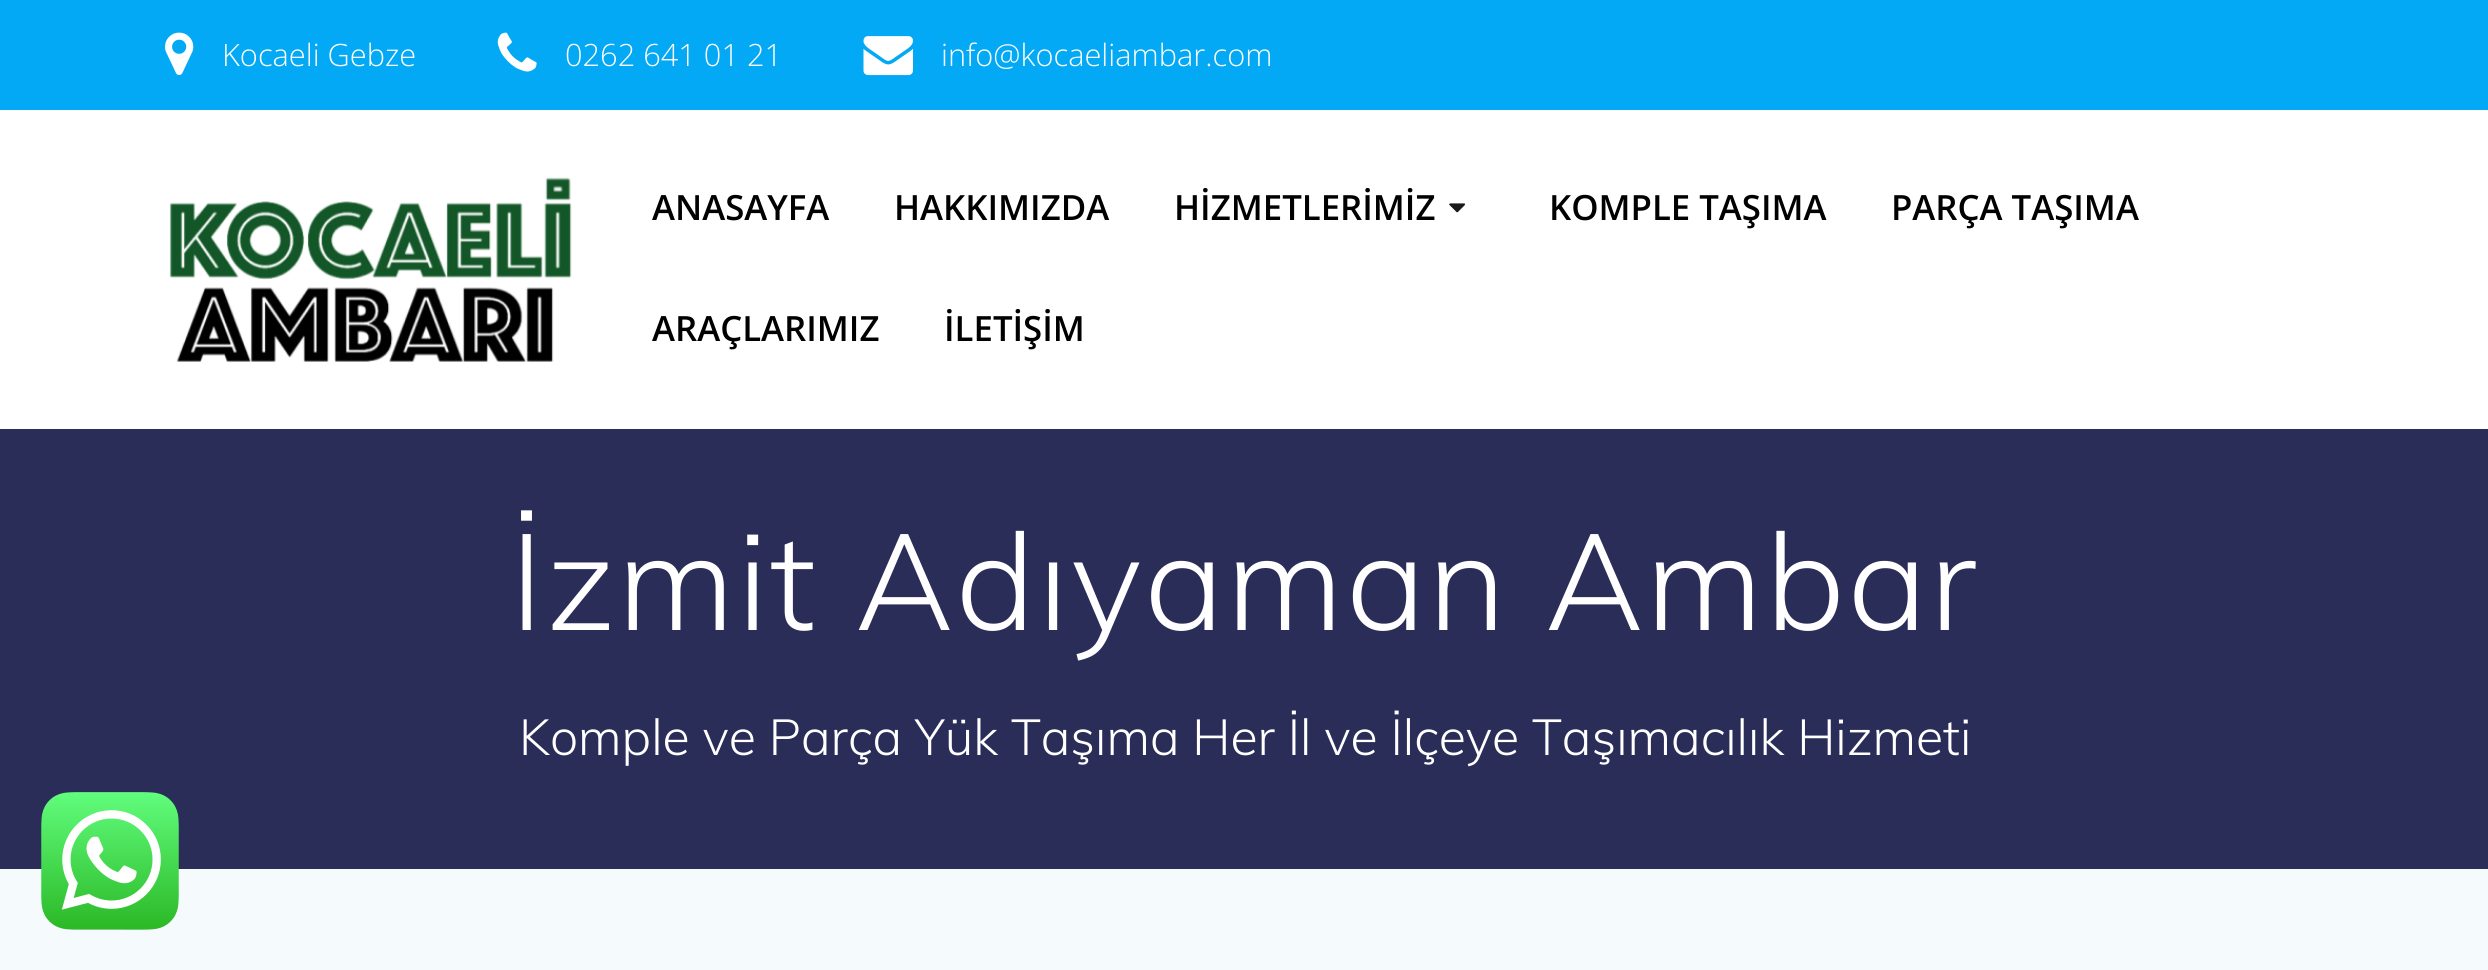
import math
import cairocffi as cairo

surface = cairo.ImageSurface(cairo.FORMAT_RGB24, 2488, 970)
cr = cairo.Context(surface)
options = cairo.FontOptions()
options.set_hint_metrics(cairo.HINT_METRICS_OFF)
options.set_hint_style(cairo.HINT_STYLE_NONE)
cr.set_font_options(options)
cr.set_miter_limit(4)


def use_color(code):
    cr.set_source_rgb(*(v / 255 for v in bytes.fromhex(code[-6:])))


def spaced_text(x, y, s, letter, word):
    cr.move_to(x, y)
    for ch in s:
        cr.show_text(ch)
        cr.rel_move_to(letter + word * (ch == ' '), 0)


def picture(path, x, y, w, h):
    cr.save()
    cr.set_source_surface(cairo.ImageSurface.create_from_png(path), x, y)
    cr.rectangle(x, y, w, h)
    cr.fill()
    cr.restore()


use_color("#2b2d59")
cr.paint()
use_color("#03a9f4")
cr.rectangle(0, 0, 2488, 110)
cr.fill()
picture("img1.png", 165, 32, 29, 43)
cr.select_font_face("Open Sans Light")
cr.set_font_size(30.75)
use_color("#ffffff")
cr.move_to(222, 66)
cr.show_text("Kocaeli Gebze")
picture("img2.png", 497, 32, 40, 40)
cr.move_to(565, 66)
cr.show_text("0262 641 01 21")
picture("img3.png", 863, 36, 50, 40)
cr.move_to(941, 66)
cr.show_text("info@kocaeliambar.com")
cr.rectangle(0, 110, 2488, 319)
cr.fill()
picture("img4.png", 169, 177, 403, 185)
cr.select_font_face("Open Sans SemiBold")
cr.set_font_size(34.75)
use_color("#000000")
cr.move_to(652, 220)
cr.show_text("ANASAYFA")
cr.move_to(894, 220)
cr.show_text("HAKKIMIZDA")
cr.move_to(1174, 220)
cr.show_text("HİZMETLERİMİZ")
picture("img5.png", 1449, 203, 17, 10)
cr.move_to(1549, 220)
cr.show_text("KOMPLE TAŞIMA")
cr.move_to(1891, 220)
cr.show_text("PARÇA TAŞIMA")
cr.move_to(652, 341)
cr.show_text("ARAÇLARIMIZ")
cr.move_to(944, 341)
cr.show_text("İLETİŞİM")
cr.select_font_face("Muli Light")
cr.set_font_size(134.75)
use_color("#ffffff")
spaced_text(510, 630, "İzmit Adıyaman Ambar", 2.5, 0)
cr.set_font_size(50.05)
cr.move_to(519, 755)
cr.show_text("Komple ve Parça Yük Taşıma Her İl ve İlçeye Taşımacılık Hizmeti")
use_color("#f5fafd")
cr.rectangle(0, 869, 2488, 101)
cr.fill()
picture("img6.png", 41, 792, 138, 138)
surface.write_to_png("result.png")
